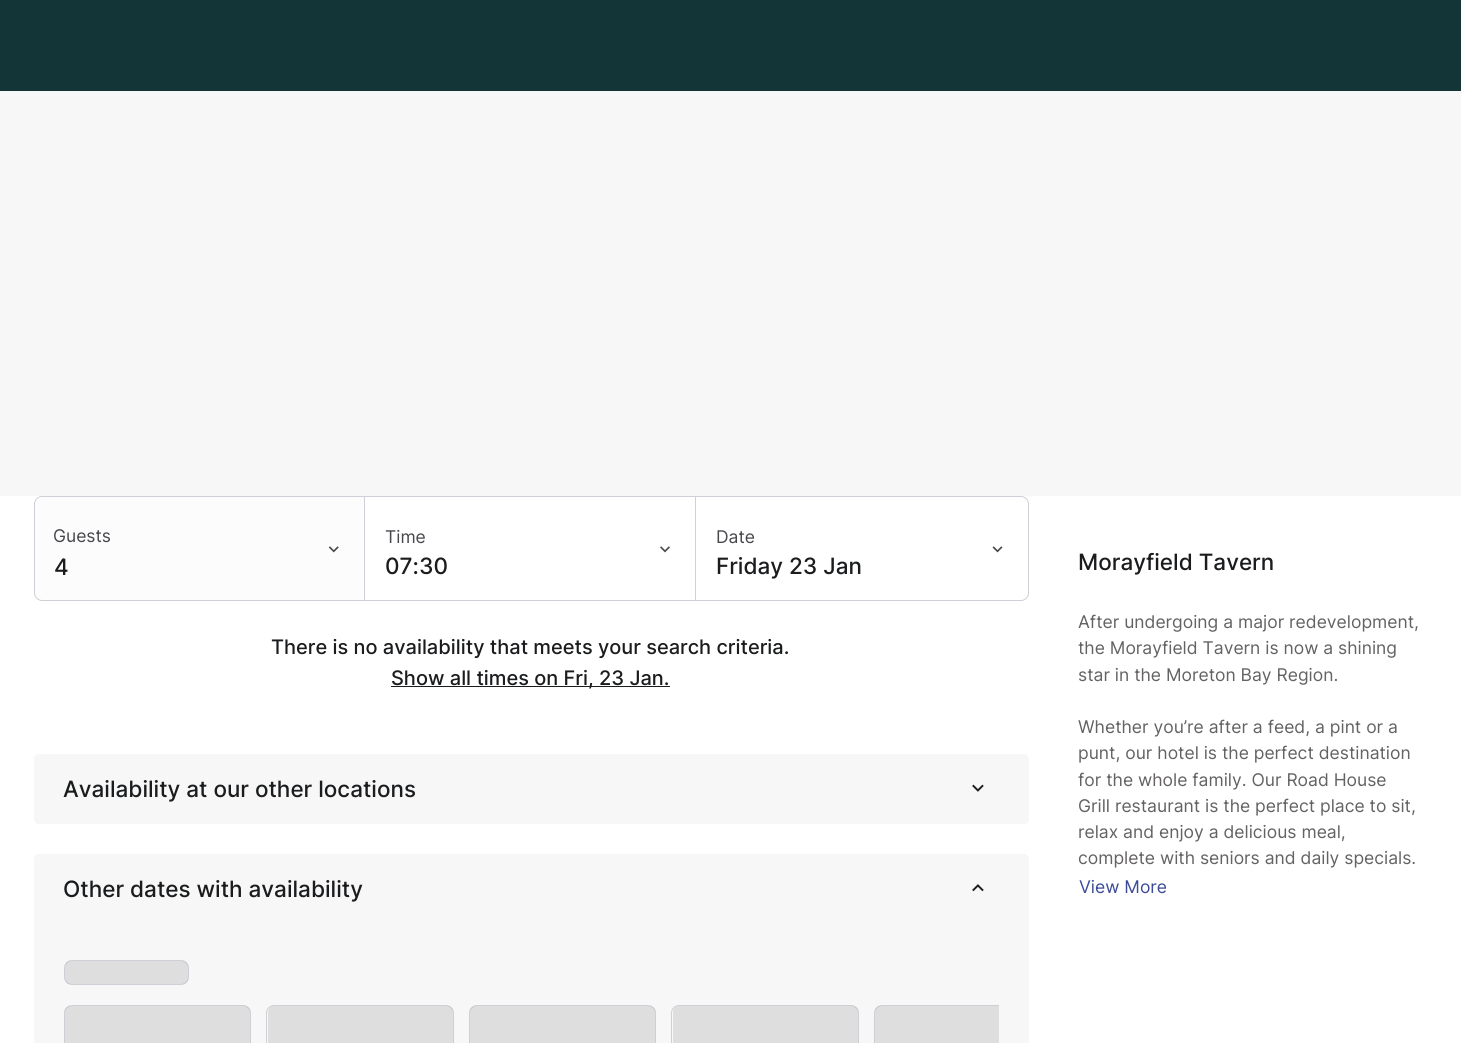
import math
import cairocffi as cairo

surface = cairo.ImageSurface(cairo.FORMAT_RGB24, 1461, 1043)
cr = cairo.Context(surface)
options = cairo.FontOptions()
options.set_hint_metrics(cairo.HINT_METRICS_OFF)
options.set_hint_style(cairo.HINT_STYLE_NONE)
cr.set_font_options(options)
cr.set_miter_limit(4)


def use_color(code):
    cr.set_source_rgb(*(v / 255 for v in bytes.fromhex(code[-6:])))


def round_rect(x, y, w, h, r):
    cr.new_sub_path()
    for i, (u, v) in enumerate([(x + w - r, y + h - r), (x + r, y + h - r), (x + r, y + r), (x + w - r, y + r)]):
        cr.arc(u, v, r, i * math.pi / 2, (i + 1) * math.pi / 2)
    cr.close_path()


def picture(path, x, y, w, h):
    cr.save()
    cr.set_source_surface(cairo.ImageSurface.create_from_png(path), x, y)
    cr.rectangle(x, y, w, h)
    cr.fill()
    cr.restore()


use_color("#f7f7f7")
cr.paint()
use_color("#133538")
cr.rectangle(0, 0, 1461, 91)
cr.fill()
use_color("#ffffff")
cr.rectangle(0, 496, 1461, 547)
cr.fill()
cr.rectangle(364.5, 496.5, 331, 104)
use_color("#cfd0d7")
cr.set_line_width(1)
cr.stroke()
use_color("#fcfcfd")
cr.new_path()
cr.move_to(42, 496.5)
cr.line_to(364.5, 496.5)
cr.line_to(364.5, 600.5)
cr.line_to(42, 600.5)
cr.curve_to(38, 600.5, 34.5, 597, 34.5, 593)
cr.line_to(34.5, 504)
cr.curve_to(34.5, 500, 38, 496.5, 42, 496.5)
cr.close_path()
cr.fill_preserve()
use_color("#cfd0d7")
cr.stroke()
cr.select_font_face("Inter")
cr.set_font_size(17.5)
use_color("#47484c")
cr.move_to(53, 542)
cr.show_text("Guests")
picture("img1.png", 328, 546, 11, 7)
cr.select_font_face("Inter Medium")
cr.set_font_size(22.5)
use_color("#1b1c1e")
cr.move_to(54, 575)
cr.show_text("4")
cr.select_font_face("Inter")
cr.set_font_size(17.5)
use_color("#47484c")
cr.move_to(385, 543)
cr.show_text("Time")
cr.select_font_face("Inter Medium")
cr.set_font_size(22.5)
use_color("#1b1c1e")
cr.move_to(385, 574)
cr.show_text("07:30")
picture("img2.png", 660, 546, 10, 7)
use_color("#ffffff")
cr.new_path()
cr.move_to(695.5, 496.5)
cr.line_to(1021, 496.5)
cr.curve_to(1025, 496.5, 1028.5, 500, 1028.5, 504)
cr.line_to(1028.5, 593)
cr.curve_to(1028.5, 597, 1025, 600.5, 1021, 600.5)
cr.line_to(695.5, 600.5)
cr.close_path()
cr.fill_preserve()
use_color("#cfd0d7")
cr.stroke()
cr.select_font_face("Inter")
cr.set_font_size(17.5)
use_color("#47484c")
cr.move_to(716, 543)
cr.show_text("Date")
cr.select_font_face("Inter Medium")
cr.set_font_size(22.5)
use_color("#1b1c1e")
cr.move_to(716, 574)
cr.show_text("Friday 23 Jan")
picture("img3.png", 992, 546, 11, 7)
cr.set_font_size(20)
cr.move_to(271, 654)
cr.show_text("There is no availability that meets your search criteria.")
cr.rectangle(391, 686, 279, 1)
cr.fill()
cr.move_to(391, 685)
cr.show_text("Show all times on Fri, 23 Jan.")
use_color("#f7f7f7")
round_rect(34, 754, 995, 70, 5)
cr.fill()
cr.set_font_size(22.5)
use_color("#1b1c1e")
cr.move_to(63, 797)
cr.show_text("Availability at our other locations")
picture("img4.png", 972, 784, 12, 8)
use_color("#f7f7f7")
round_rect(34, 854, 995, 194, 5)
cr.fill()
use_color("#1b1c1e")
cr.move_to(63, 897)
cr.show_text("Other dates with availability")
picture("img5.png", 972, 884, 12, 8)
round_rect(64.5, 960.5, 124, 24, 7.5)
use_color("#cfd0d7")
cr.stroke()
cr.set_source_rgba(0.118, 0.106, 0.118, 0.11)
round_rect(65, 961, 123, 23, 6)
cr.fill()
round_rect(64.5, 1005.5, 186, 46, 7.5)
use_color("#cfd0d7")
cr.stroke()
cr.set_source_rgba(0.118, 0.106, 0.118, 0.11)
round_rect(65, 1006, 185, 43, 6)
cr.fill()
round_rect(266.5, 1005.5, 187, 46, 7.5)
use_color("#cfd0d7")
cr.stroke()
cr.set_source_rgba(0.118, 0.106, 0.118, 0.11)
round_rect(268, 1006, 185, 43, 6)
cr.fill()
round_rect(469.5, 1005.5, 186, 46, 7.5)
use_color("#cfd0d7")
cr.stroke()
cr.set_source_rgba(0.118, 0.106, 0.118, 0.11)
round_rect(470, 1006, 185, 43, 6)
cr.fill()
round_rect(671.5, 1005.5, 187, 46, 7.5)
use_color("#cfd0d7")
cr.stroke()
cr.set_source_rgba(0.118, 0.106, 0.118, 0.11)
round_rect(673, 1006, 185, 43, 6)
cr.fill()
cr.save()
cr.rectangle(64, 1005, 935, 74)
cr.clip()
round_rect(874.5, 1005.5, 186, 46, 7.5)
use_color("#cfd0d7")
cr.stroke()
cr.restore()
cr.new_path()
cr.move_to(881, 1006)
cr.line_to(999, 1006)
cr.line_to(999, 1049)
cr.line_to(881, 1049)
cr.curve_to(877.5, 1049, 875, 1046.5, 875, 1043)
cr.line_to(875, 1012)
cr.curve_to(875, 1008.5, 877.5, 1006, 881, 1006)
cr.close_path()
cr.fill()
use_color("#1b1c1e")
cr.move_to(1078, 570)
cr.show_text("Morayfield Tavern")
cr.select_font_face("Inter")
cr.set_font_size(17.5)
use_color("#646262")
cr.move_to(1078, 628)
cr.show_text("After undergoing a major redevelopment,")
cr.move_to(1078, 654)
cr.show_text("the Morayfield Tavern is now a shining")
cr.move_to(1078, 681)
cr.show_text("star in the Moreton Bay Region.")
cr.move_to(1078, 733)
cr.show_text("Whether you’re after a feed, a pint or a")
cr.move_to(1078, 759)
cr.show_text("punt, our hotel is the perfect destination")
cr.move_to(1078, 786)
cr.show_text("for the whole family. Our Road House")
cr.move_to(1078, 812)
cr.show_text("Grill restaurant is the perfect place to sit,")
cr.move_to(1078, 838)
cr.show_text("relax and enjoy a delicious meal,")
cr.move_to(1078, 864)
cr.show_text("complete with seniors and daily specials.")
use_color("#3c4b97")
cr.move_to(1079, 893)
cr.show_text("View More")
surface.write_to_png("result.png")
